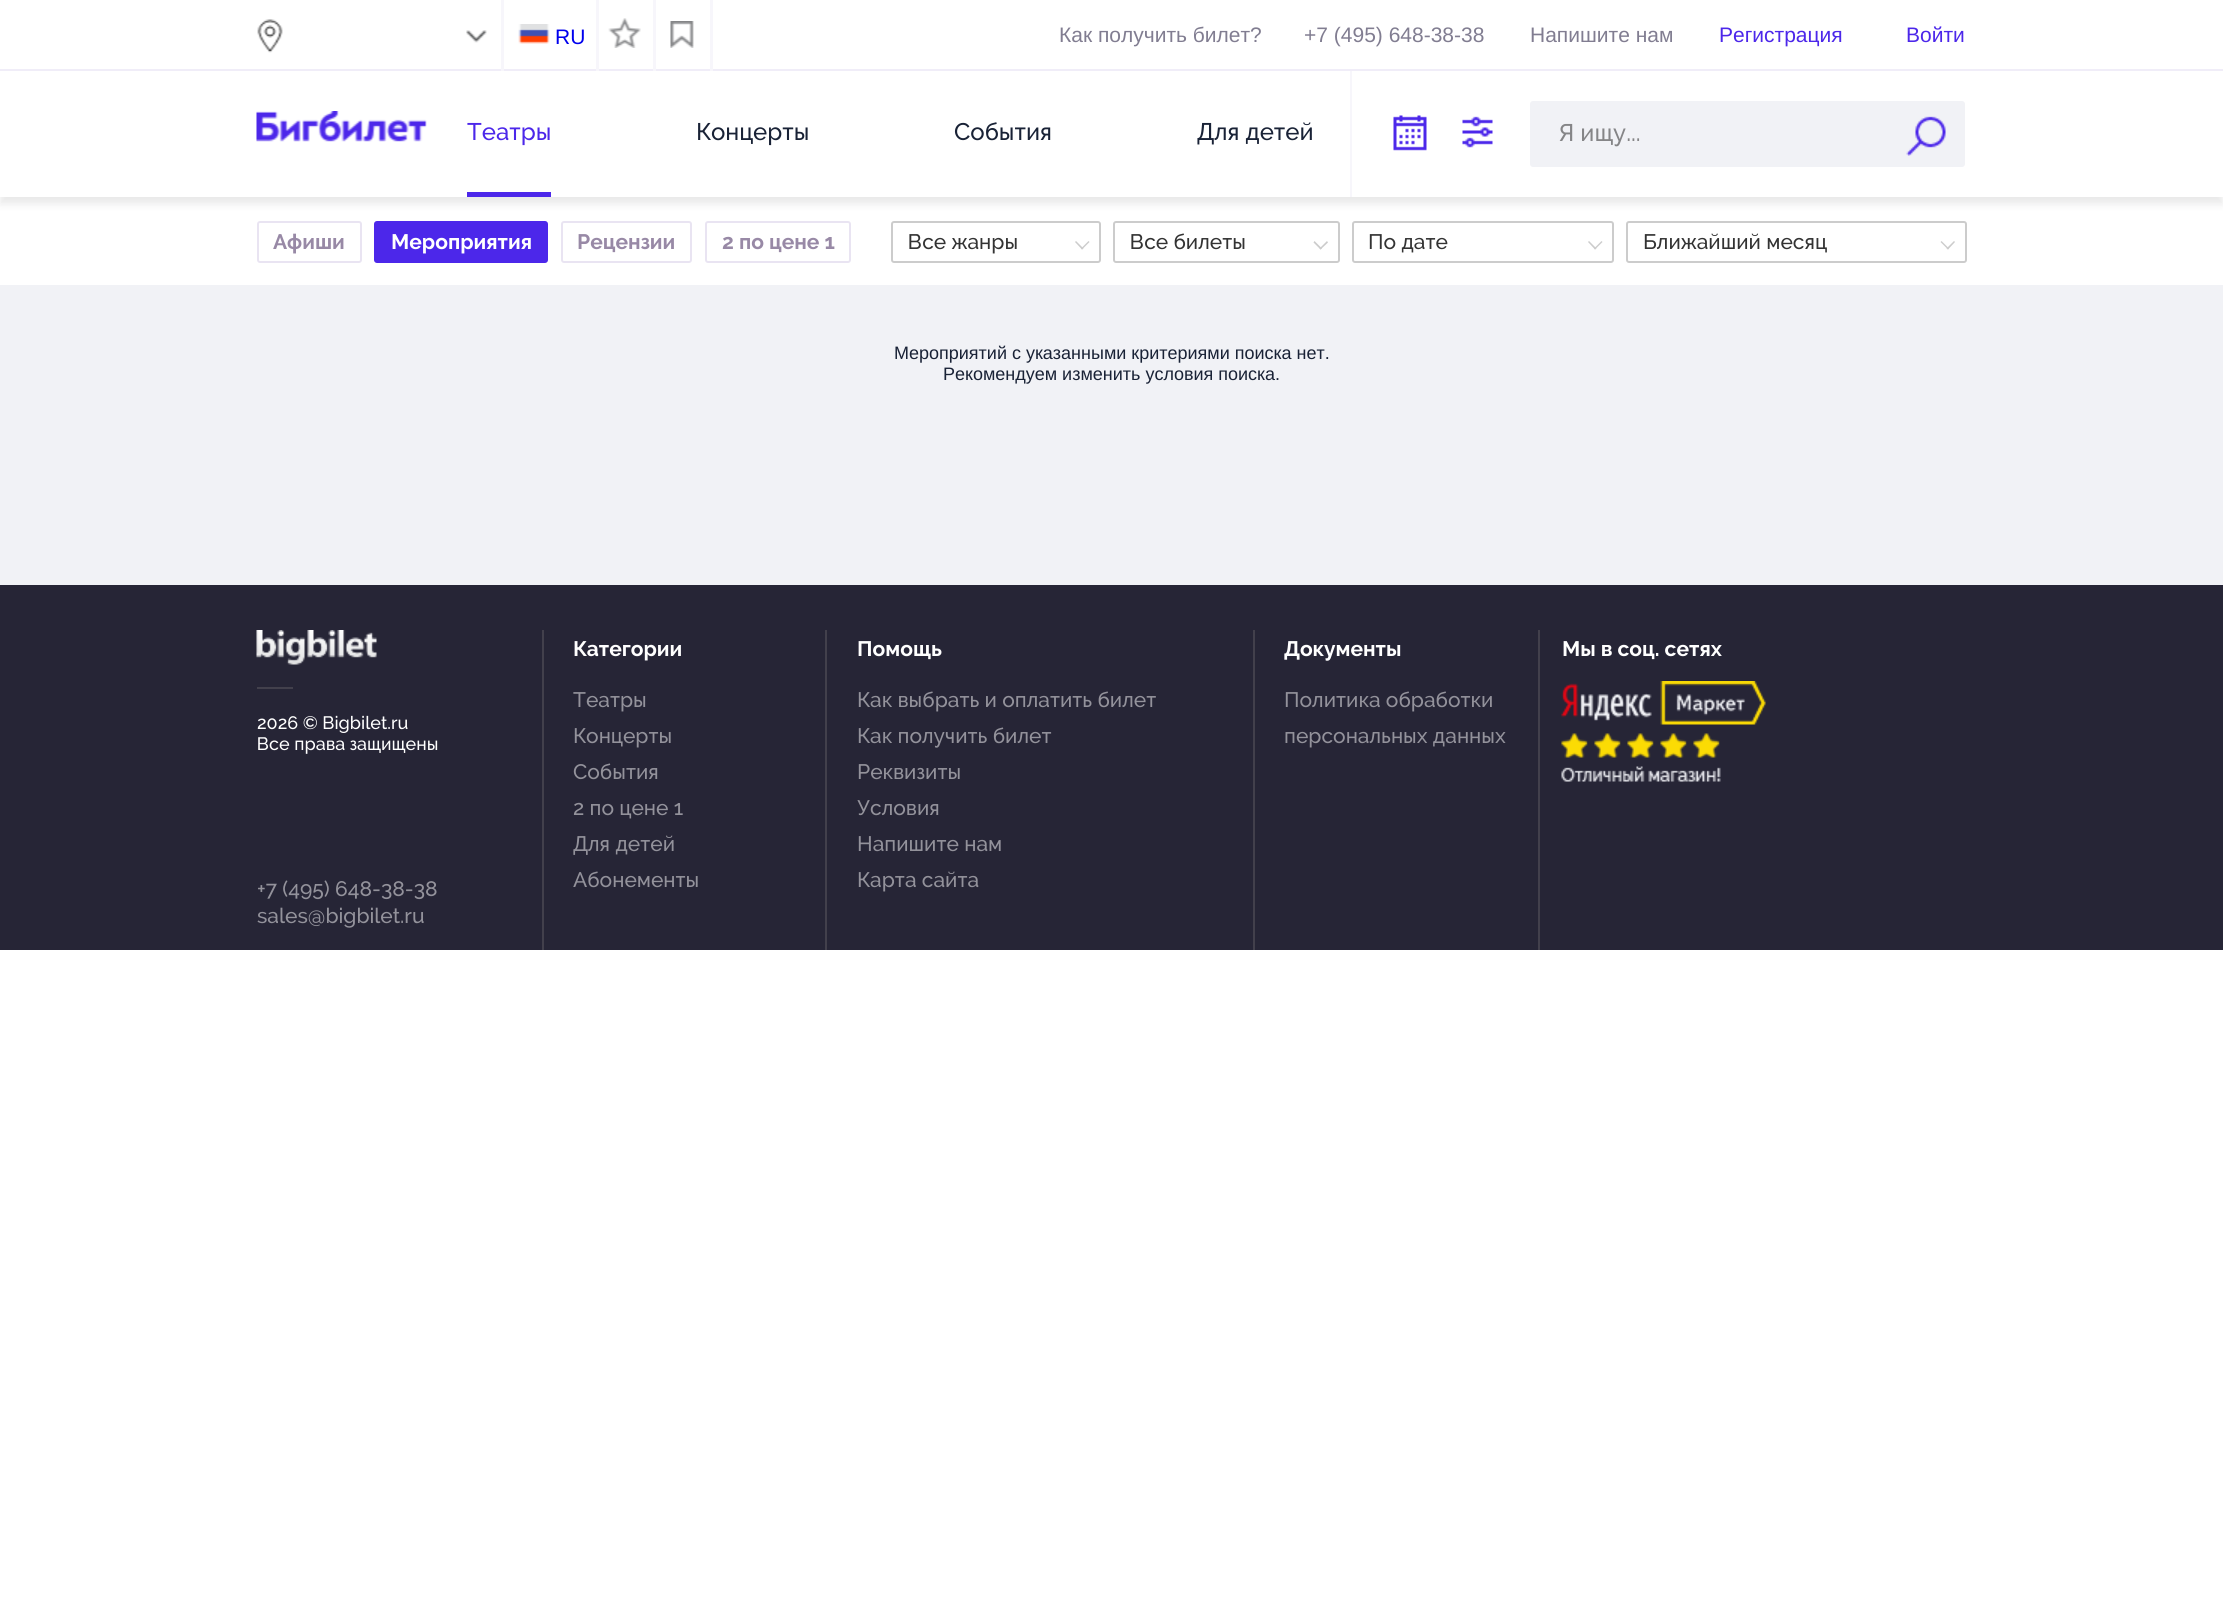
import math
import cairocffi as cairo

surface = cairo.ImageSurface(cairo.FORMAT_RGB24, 2223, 1598)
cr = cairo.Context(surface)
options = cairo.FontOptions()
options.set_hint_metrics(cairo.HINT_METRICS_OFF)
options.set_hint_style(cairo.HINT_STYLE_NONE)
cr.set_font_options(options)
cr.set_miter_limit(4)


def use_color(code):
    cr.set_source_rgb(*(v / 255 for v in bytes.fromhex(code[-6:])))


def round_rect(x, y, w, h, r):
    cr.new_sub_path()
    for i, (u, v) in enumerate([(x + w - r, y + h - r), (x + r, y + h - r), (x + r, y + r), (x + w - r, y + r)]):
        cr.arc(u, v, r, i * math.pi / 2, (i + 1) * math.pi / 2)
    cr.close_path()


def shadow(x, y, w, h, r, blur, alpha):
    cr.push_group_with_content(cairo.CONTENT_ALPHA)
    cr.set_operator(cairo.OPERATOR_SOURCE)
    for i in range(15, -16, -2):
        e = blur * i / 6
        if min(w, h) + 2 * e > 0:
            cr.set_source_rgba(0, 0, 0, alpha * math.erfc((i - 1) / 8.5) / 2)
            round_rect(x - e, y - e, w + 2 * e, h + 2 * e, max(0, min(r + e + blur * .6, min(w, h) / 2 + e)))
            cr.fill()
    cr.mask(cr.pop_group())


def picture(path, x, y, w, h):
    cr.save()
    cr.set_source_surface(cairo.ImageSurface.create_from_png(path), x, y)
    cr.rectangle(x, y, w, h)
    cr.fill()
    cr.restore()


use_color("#ffffff")
cr.paint()
cr.save()
cr.set_fill_rule(cairo.FILL_RULE_EVEN_ODD)
cr.new_path()
cr.move_to(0, 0)
cr.line_to(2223, 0)
cr.line_to(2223, 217)
cr.line_to(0, 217)
cr.close_path()
cr.move_to(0, 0)
cr.line_to(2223, 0)
cr.line_to(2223, 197)
cr.line_to(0, 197)
cr.close_path()
cr.clip()
use_color("#222223")
shadow(0, 8, 2223, 196, 0, 4, 0.1)
cr.restore()
use_color("#f0edf8")
cr.rectangle(0, 69, 2223, 2)
cr.fill()
use_color("#f7f6fb")
cr.rectangle(501, 0, 3, 71)
cr.fill()
picture("img1.png", 257, 19, 26, 34)
picture("img2.png", 466, 30, 21, 13)
picture("img3.png", 518, 24, 32, 20)
cr.select_font_face("Liberation Sans")
cr.set_font_size(21)
use_color("#0000ee")
cr.move_to(555, 44)
cr.show_text("RU")
use_color("#f7f6fb")
cr.rectangle(596, 0, 3, 71)
cr.fill()
picture("img4.png", 608, 18, 33, 30)
cr.rectangle(710, 0, 3, 71)
cr.fill()
cr.rectangle(653, 0, 3, 71)
cr.fill()
picture("img5.png", 670, 21, 24, 27)
use_color("#817d91")
cr.move_to(1059, 42)
cr.show_text("Как получить билет?")
cr.move_to(1304, 42)
cr.show_text("+7 (495) 648-38-38")
cr.move_to(1530, 42)
cr.show_text("Напишите нам")
use_color("#4c27ea")
cr.move_to(1719, 42)
cr.show_text("Регистрация")
cr.move_to(1906, 42)
cr.show_text("Войти")
picture("img6.png", 256, 111, 171, 31)
cr.rectangle(467, 192, 84, 5)
cr.fill()
cr.select_font_face("Raleway Medium")
cr.set_font_size(24)
cr.move_to(467, 140)
cr.show_text("Театры")
use_color("#192236")
cr.move_to(696, 140)
cr.show_text("Концерты")
cr.move_to(954, 140)
cr.show_text("События")
cr.move_to(1197, 140)
cr.show_text("Для детей")
use_color("#f7f6fb")
cr.rectangle(1350, 71, 2, 126)
cr.fill()
picture("img7.png", 1393, 115, 34, 36)
picture("img8.png", 1462, 116, 31, 32)
use_color("#f1f2f6")
round_rect(1530, 101, 435, 66, 3)
cr.fill()
use_color("#858587")
cr.move_to(1559, 141)
cr.show_text("Я ищу...")
picture("img9.png", 1906, 116, 40, 40)
round_rect(258, 222, 103, 40, 2)
use_color("#e9e4f2")
cr.stroke()
cr.select_font_face("Raleway", cairo.FONT_SLANT_NORMAL, cairo.FONT_WEIGHT_BOLD)
cr.set_font_size(21)
use_color("#9889a6")
cr.move_to(273, 249)
cr.show_text("Афиши")
use_color("#4c27ea")
round_rect(375, 222, 172, 40, 2)
cr.fill_preserve()
cr.stroke()
use_color("#ffffff")
cr.move_to(391, 249)
cr.show_text("Мероприятия")
round_rect(562, 222, 129, 40, 2)
use_color("#e9e4f2")
cr.stroke()
use_color("#9889a6")
cr.move_to(577, 249)
cr.show_text("Рецензии")
round_rect(706, 222, 144, 40, 2)
use_color("#e9e4f2")
cr.stroke()
use_color("#9889a6")
cr.move_to(722, 249)
cr.show_text("2 по цене 1")
round_rect(892, 222, 208, 40, 2)
use_color("#cccccc")
cr.stroke()
cr.select_font_face("Raleway Medium")
use_color("#333333")
cr.move_to(908, 249)
cr.show_text("Все жанры")
use_color("#cccccc")
cr.new_path()
cr.move_to(1081, 248.5)
cr.line_to(1088.5, 241)
cr.line_to(1089.5, 242)
cr.line_to(1082, 249.5)
cr.close_path()
cr.fill()
cr.new_path()
cr.move_to(1075, 242)
cr.line_to(1076, 241)
cr.line_to(1083.5, 248.5)
cr.line_to(1082, 249.5)
cr.close_path()
cr.fill()
round_rect(1114, 222, 225, 40, 2)
cr.stroke()
use_color("#333333")
cr.move_to(1130, 249)
cr.show_text("Все билеты")
use_color("#cccccc")
cr.new_path()
cr.move_to(1319.5, 248.5)
cr.line_to(1327, 241)
cr.line_to(1328, 242.5)
cr.line_to(1320.5, 249.5)
cr.close_path()
cr.fill()
cr.new_path()
cr.move_to(1313.5, 242.5)
cr.line_to(1314.5, 241)
cr.line_to(1322, 248.5)
cr.line_to(1320.5, 249.5)
cr.close_path()
cr.fill()
round_rect(1353, 222, 260, 40, 2)
cr.stroke()
use_color("#333333")
cr.move_to(1368, 249)
cr.show_text("По дате")
use_color("#cccccc")
cr.new_path()
cr.move_to(1594, 248.5)
cr.line_to(1601.5, 241)
cr.line_to(1602.5, 242)
cr.line_to(1595, 249.5)
cr.close_path()
cr.fill()
cr.new_path()
cr.move_to(1588, 242)
cr.line_to(1589, 241)
cr.line_to(1596.5, 248.5)
cr.line_to(1595, 249.5)
cr.close_path()
cr.fill()
round_rect(1627, 222, 339, 40, 2)
cr.stroke()
use_color("#333333")
cr.move_to(1643, 249)
cr.show_text("Ближайший месяц")
use_color("#cccccc")
cr.new_path()
cr.move_to(1946.5, 248.5)
cr.line_to(1954, 241)
cr.line_to(1955, 242)
cr.line_to(1948, 249.5)
cr.close_path()
cr.fill()
cr.new_path()
cr.move_to(1940.5, 242)
cr.line_to(1941.5, 241)
cr.line_to(1949, 248.5)
cr.line_to(1948, 249.5)
cr.close_path()
cr.fill()
use_color("#f1f2f6")
cr.rectangle(0, 285, 2223, 300)
cr.fill()
cr.select_font_face("Liberation Sans")
cr.set_font_size(18)
use_color("#192236")
cr.move_to(894, 359)
cr.show_text("Мероприятий с указанными критериями поиска нет.")
cr.move_to(943, 380)
cr.show_text("Рекомендуем изменить условия поиска.")
use_color("#262536")
cr.rectangle(0, 585, 2223, 365)
cr.fill()
use_color("#42404c")
cr.rectangle(825, 630, 2, 320)
cr.fill()
cr.rectangle(542, 630, 2, 320)
cr.fill()
cr.select_font_face("Raleway", cairo.FONT_SLANT_NORMAL, cairo.FONT_WEIGHT_BOLD)
cr.set_font_size(21)
use_color("#ffffff")
cr.move_to(573, 656)
cr.show_text("Категории")
cr.select_font_face("Raleway Medium")
use_color("#93929b")
cr.move_to(573, 707)
cr.show_text("Театры")
cr.move_to(573, 743)
cr.show_text("Концерты")
cr.move_to(573, 779)
cr.show_text("События")
cr.move_to(573, 815)
cr.show_text("2 по цене 1")
cr.move_to(573, 851)
cr.show_text("Для детей")
cr.move_to(573, 887)
cr.show_text("Абонементы")
use_color("#42404c")
cr.rectangle(1253, 630, 2, 320)
cr.fill()
cr.select_font_face("Raleway", cairo.FONT_SLANT_NORMAL, cairo.FONT_WEIGHT_BOLD)
use_color("#ffffff")
cr.move_to(857, 656)
cr.show_text("Помощь")
cr.select_font_face("Raleway Medium")
use_color("#93929b")
cr.move_to(857, 707)
cr.show_text("Как выбрать и оплатить билет")
cr.move_to(857, 743)
cr.show_text("Как получить билет")
cr.move_to(857, 779)
cr.show_text("Реквизиты")
cr.move_to(857, 815)
cr.show_text("Условия")
cr.move_to(857, 851)
cr.show_text("Напишите нам")
cr.move_to(857, 887)
cr.show_text("Карта сайта")
use_color("#42404c")
cr.rectangle(1538, 630, 2, 320)
cr.fill()
cr.select_font_face("Raleway", cairo.FONT_SLANT_NORMAL, cairo.FONT_WEIGHT_BOLD)
use_color("#ffffff")
cr.move_to(1284, 656)
cr.show_text("Документы")
cr.select_font_face("Raleway Medium")
use_color("#93929b")
cr.move_to(1284, 707)
cr.show_text("Политика обработки")
cr.move_to(1284, 743)
cr.show_text("персональных данных")
cr.select_font_face("Raleway", cairo.FONT_SLANT_NORMAL, cairo.FONT_WEIGHT_BOLD)
use_color("#ffffff")
cr.move_to(1562, 656)
cr.show_text("Мы в соц. сетях")
picture("img10.png", 1561, 681, 205, 101)
picture("img11.png", 256, 630, 121, 35)
use_color("#42404c")
cr.rectangle(257, 687, 36, 2)
cr.fill()
cr.select_font_face("Raleway Medium")
cr.set_font_size(18)
use_color("#ffffff")
cr.move_to(257, 729)
cr.show_text("2026 © Bigbilet.ru")
cr.move_to(257, 750)
cr.show_text("Все права защищены")
cr.set_font_size(21)
use_color("#93929b")
cr.move_to(257, 896)
cr.show_text("+7 (495) 648-38-38")
cr.move_to(257, 923)
cr.show_text("sales@bigbilet.ru")
surface.write_to_png("result.png")
